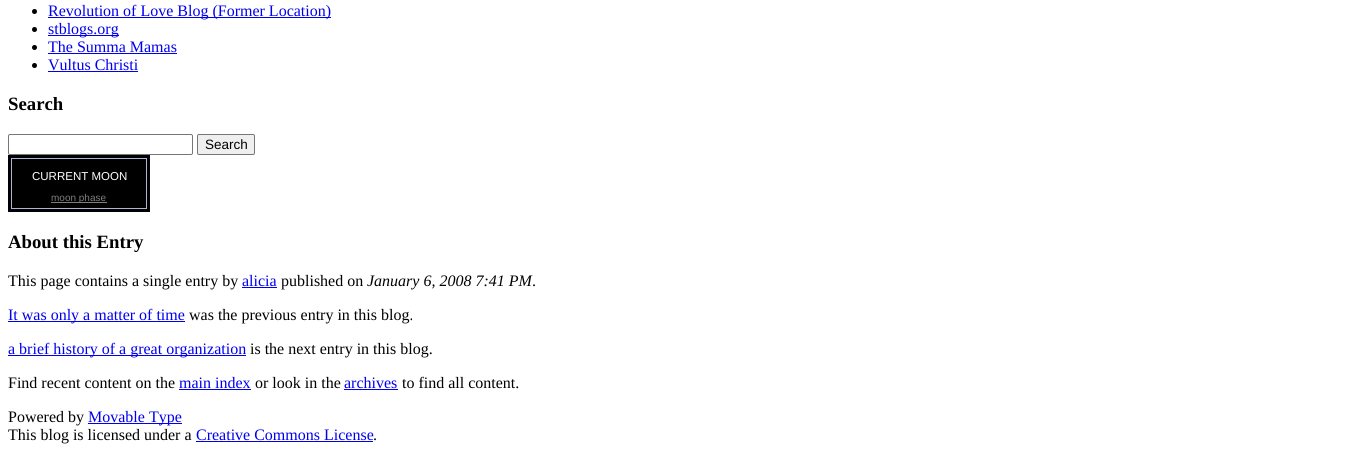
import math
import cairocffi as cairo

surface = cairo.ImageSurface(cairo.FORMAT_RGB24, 1358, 452)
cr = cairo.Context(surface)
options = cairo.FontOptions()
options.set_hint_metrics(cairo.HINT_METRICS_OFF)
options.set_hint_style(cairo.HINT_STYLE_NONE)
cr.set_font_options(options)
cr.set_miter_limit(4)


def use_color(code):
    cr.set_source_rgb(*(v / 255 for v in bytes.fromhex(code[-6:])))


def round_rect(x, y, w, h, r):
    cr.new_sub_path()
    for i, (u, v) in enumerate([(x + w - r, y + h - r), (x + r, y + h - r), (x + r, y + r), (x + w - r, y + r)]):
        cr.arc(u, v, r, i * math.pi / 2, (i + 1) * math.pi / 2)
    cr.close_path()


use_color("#ffffff")
cr.paint()
use_color("#000000")
cr.arc(34.5, 11.5, 2.5, 0, 2 * math.pi)
cr.fill()
use_color("#0000ee")
cr.rectangle(48, 17, 283, 1)
cr.fill()
cr.select_font_face("Liberation Serif")
cr.set_font_size(16)
cr.move_to(48, 16)
cr.show_text("Revolution of Love Blog (Former Location)")
use_color("#000000")
cr.new_path()
cr.arc(34.5, 29.5, 2.5, 0, 2 * math.pi)
cr.fill()
use_color("#0000ee")
cr.rectangle(48, 35, 71, 1)
cr.fill()
cr.move_to(48, 34)
cr.show_text("stblogs.org")
use_color("#000000")
cr.new_path()
cr.arc(34.5, 47.5, 2.5, 0, 2 * math.pi)
cr.fill()
use_color("#0000ee")
cr.move_to(48, 52)
cr.show_text("The Summa Mamas")
cr.rectangle(48, 53, 129, 1)
cr.fill()
use_color("#000000")
cr.arc(34.5, 65.5, 2.5, 0, 2 * math.pi)
cr.fill()
use_color("#0000ee")
cr.move_to(48, 70)
cr.show_text("Vultus Christi")
cr.rectangle(48, 71, 90, 1)
cr.fill()
cr.select_font_face("Liberation Serif", cairo.FONT_SLANT_NORMAL, cairo.FONT_WEIGHT_BOLD)
cr.set_font_size(18.75)
use_color("#000000")
cr.move_to(8, 110)
cr.show_text("Search")
round_rect(8.5, 134.5, 184, 20, 1.5)
use_color("#767676")
cr.set_line_width(1)
cr.stroke()
use_color("#efefef")
round_rect(197.5, 134.5, 57, 20, 1.5)
cr.fill_preserve()
use_color("#767676")
cr.stroke()
cr.select_font_face("Liberation Sans")
cr.set_font_size(13.5)
use_color("#000000")
cr.move_to(205, 149)
cr.show_text("Search")
cr.rectangle(8, 155, 142, 57)
cr.fill()
cr.rectangle(11.5, 158.5, 135, 50)
use_color("#afb2d8")
cr.stroke()
cr.set_font_size(11.5)
use_color("#ffffff")
cr.move_to(32, 180)
cr.show_text("CURRENT MOON")
use_color("#7f7f7f")
cr.rectangle(51, 202, 56, 1)
cr.fill()
cr.set_font_size(10)
cr.move_to(51, 201)
cr.show_text("moon phase")
cr.select_font_face("Liberation Serif", cairo.FONT_SLANT_NORMAL, cairo.FONT_WEIGHT_BOLD)
cr.set_font_size(18.75)
use_color("#000000")
cr.move_to(8, 248)
cr.show_text("About this Entry")
cr.select_font_face("Liberation Serif")
cr.set_font_size(16)
cr.move_to(8, 286)
cr.show_text("This page contains a single entry by")
use_color("#0000ee")
cr.move_to(242, 286)
cr.show_text("alicia")
cr.rectangle(242, 287, 35, 1)
cr.fill()
use_color("#000000")
cr.move_to(281, 286)
cr.show_text("published on")
cr.select_font_face("Liberation Serif", cairo.FONT_SLANT_ITALIC)
cr.move_to(367, 286)
cr.show_text("January 6, 2008 7:41 PM")
cr.select_font_face("Liberation Serif")
cr.move_to(532, 286)
cr.show_text(".")
use_color("#0000ee")
cr.rectangle(8, 321, 177, 1)
cr.fill()
cr.move_to(8, 320)
cr.show_text("It was only a matter of time")
use_color("#000000")
cr.move_to(189, 320)
cr.show_text("was the previous entry in this blog.")
use_color("#0000ee")
cr.rectangle(8, 355, 238, 1)
cr.fill()
cr.move_to(8, 354)
cr.show_text("a brief history of a great organization")
use_color("#000000")
cr.move_to(250, 354)
cr.show_text("is the next entry in this blog.")
cr.move_to(8, 388)
cr.show_text("Find recent content on the")
use_color("#0000ee")
cr.move_to(179, 388)
cr.show_text("main index")
cr.rectangle(179, 389, 72, 1)
cr.fill()
use_color("#000000")
cr.move_to(255, 388)
cr.show_text("or look in the")
use_color("#0000ee")
cr.move_to(344, 388)
cr.show_text("archives")
cr.rectangle(344, 389, 54, 1)
cr.fill()
use_color("#000000")
cr.move_to(402, 388)
cr.show_text("to find all content.")
cr.move_to(8, 422)
cr.show_text("Powered by")
use_color("#0000ee")
cr.rectangle(88, 423, 94, 1)
cr.fill()
cr.move_to(88, 422)
cr.show_text("Movable Type")
use_color("#000000")
cr.move_to(8, 440)
cr.show_text("This blog is licensed under a")
use_color("#0000ee")
cr.move_to(196, 440)
cr.show_text("Creative Commons License")
cr.rectangle(196, 441, 177, 1)
cr.fill()
use_color("#000000")
cr.move_to(373, 440)
cr.show_text(".")
surface.write_to_png("result.png")
